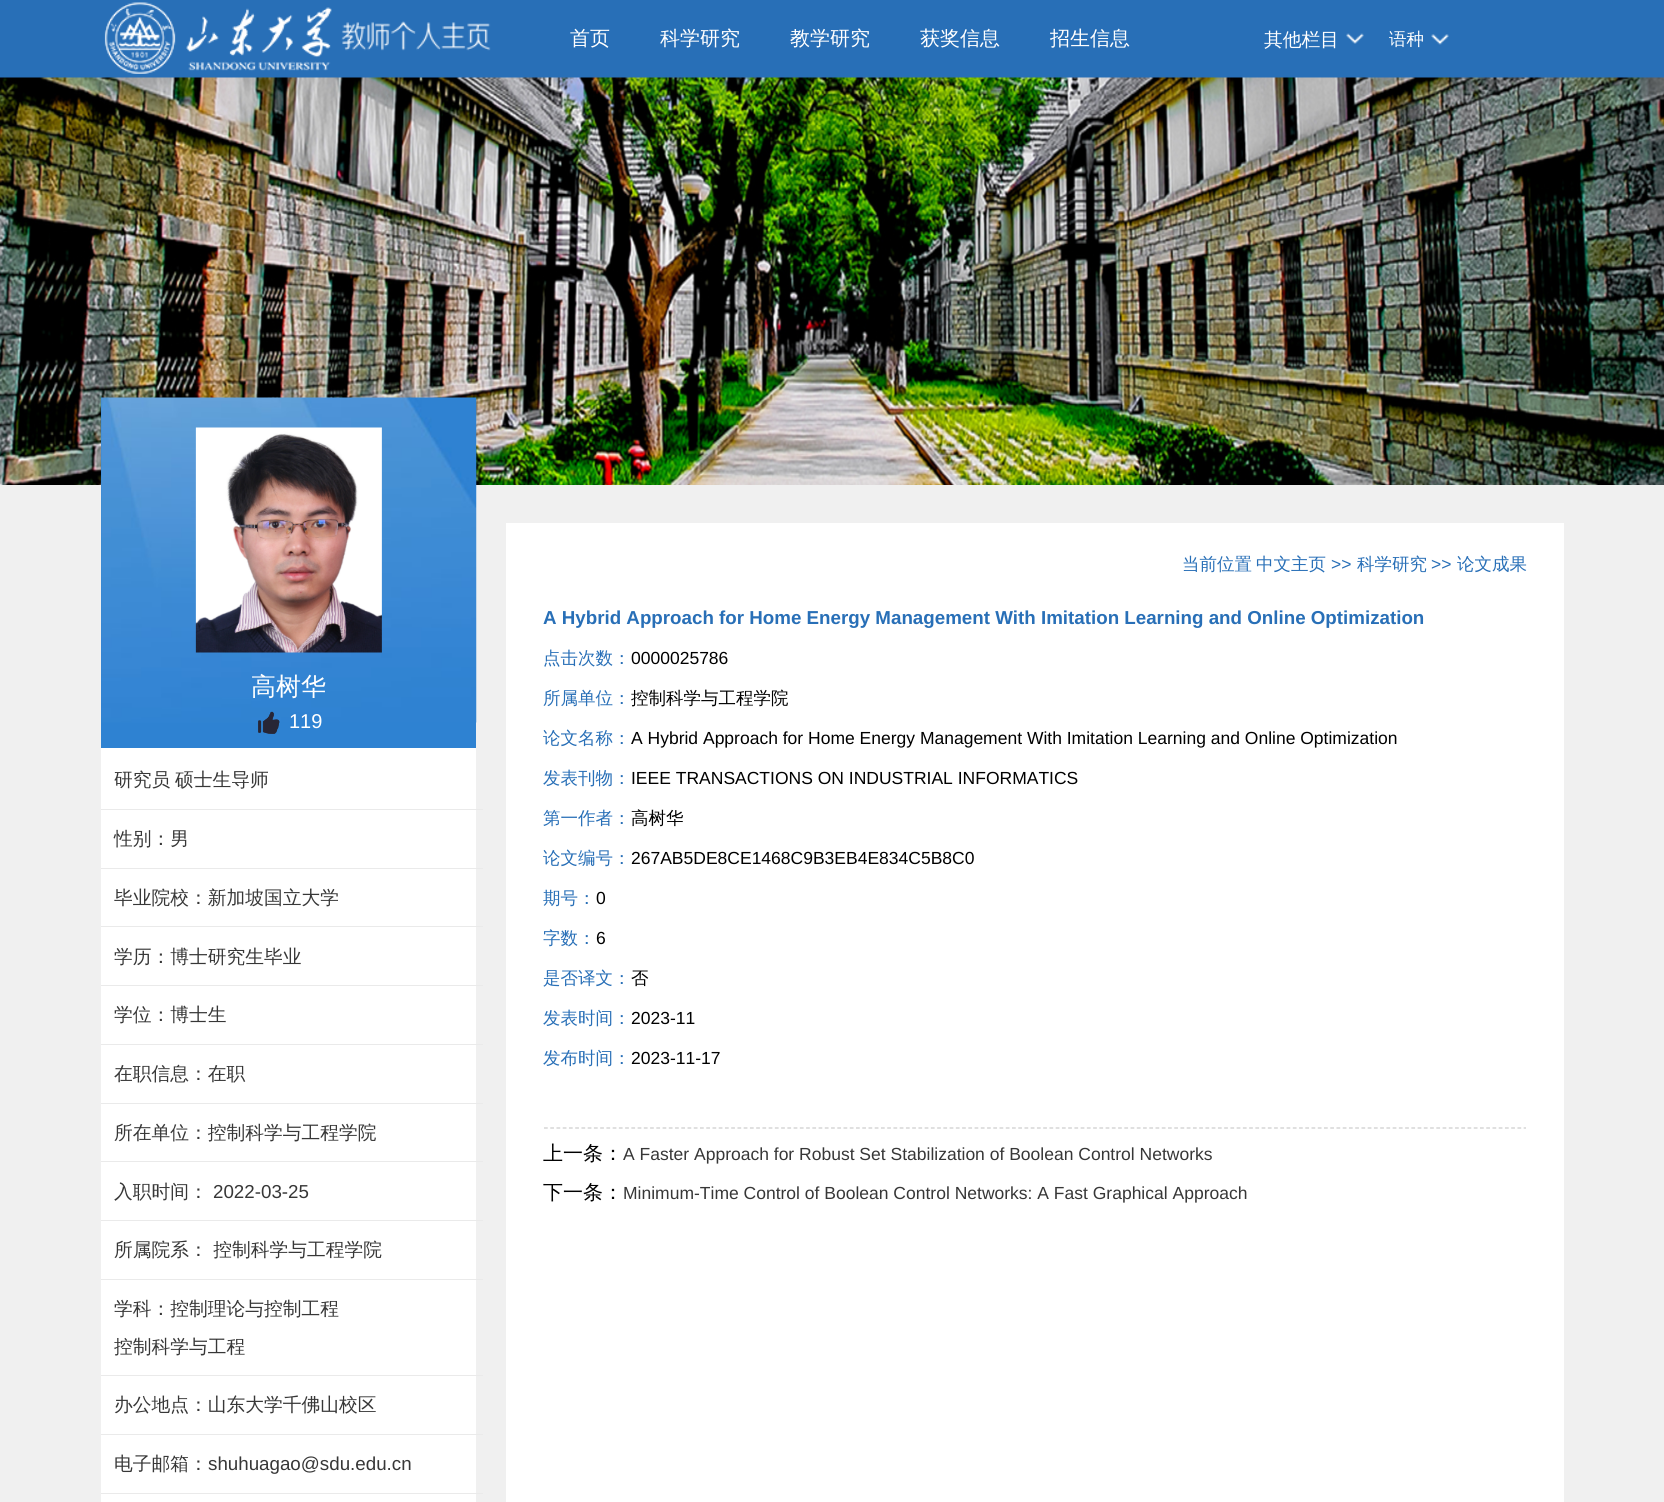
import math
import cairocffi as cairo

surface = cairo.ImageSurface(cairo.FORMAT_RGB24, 1664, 1502)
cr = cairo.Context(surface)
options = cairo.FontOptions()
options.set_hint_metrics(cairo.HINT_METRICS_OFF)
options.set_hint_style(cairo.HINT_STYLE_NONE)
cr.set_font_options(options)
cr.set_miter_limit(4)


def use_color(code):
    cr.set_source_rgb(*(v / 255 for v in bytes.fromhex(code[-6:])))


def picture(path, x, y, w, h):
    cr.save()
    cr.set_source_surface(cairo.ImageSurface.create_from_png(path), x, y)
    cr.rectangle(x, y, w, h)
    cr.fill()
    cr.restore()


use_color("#f0f0f0")
cr.paint()
use_color("#286fb7")
cr.rectangle(0, 0, 1664, 78)
cr.fill()
picture("img1.png", 104, 2, 387, 72)
cr.select_font_face("WenQuanYi Zen Hei Medium")
cr.set_font_size(20)
use_color("#ffffff")
cr.move_to(570, 45)
cr.show_text("首页")
cr.move_to(660, 45)
cr.show_text("科学研究")
cr.move_to(790, 45)
cr.show_text("教学研究")
cr.move_to(920, 45)
cr.show_text("获奖信息")
cr.move_to(1050, 45)
cr.show_text("招生信息")
picture("img2.png", 1346, 33, 18, 11)
cr.set_font_size(18.75)
cr.move_to(1264, 46)
cr.show_text("其他栏目")
picture("img3.png", 1431, 34, 18, 11)
cr.set_font_size(17.5)
cr.move_to(1389, 45)
cr.show_text("语种")
picture("img4.png", 0, 77, 1664, 408)
cr.rectangle(101, 748, 375, 754)
cr.fill()
use_color("#2e82d2")
cr.rectangle(101, 398, 375, 350)
cr.fill()
picture("img5.png", 101, 397, 376, 326)
picture("img6.png", 195, 427, 187, 226)
cr.set_font_size(25)
use_color("#ffffff")
cr.move_to(251, 695)
cr.show_text("高树华")
picture("img7.png", 258, 711, 22, 23)
cr.select_font_face("Liberation Sans")
cr.set_font_size(20)
cr.move_to(289, 728)
cr.show_text("119")
use_color("#eaeaea")
cr.rectangle(101, 809, 382, 1)
cr.fill()
cr.select_font_face("WenQuanYi Zen Hei Medium")
cr.set_font_size(18.75)
use_color("#373737")
cr.move_to(114, 786)
cr.show_text("研究员")
cr.move_to(175, 786)
cr.show_text("硕士生导师")
use_color("#eaeaea")
cr.rectangle(101, 868, 382, 1)
cr.fill()
use_color("#373737")
cr.move_to(114, 845)
cr.show_text("性别：男")
use_color("#eaeaea")
cr.rectangle(101, 926, 382, 1)
cr.fill()
use_color("#373737")
cr.move_to(114, 904)
cr.show_text("毕业院校：新加坡国立大学")
use_color("#eaeaea")
cr.rectangle(101, 985, 382, 1)
cr.fill()
use_color("#373737")
cr.move_to(114, 963)
cr.show_text("学历：博士研究生毕业")
use_color("#eaeaea")
cr.rectangle(101, 1044, 382, 1)
cr.fill()
use_color("#373737")
cr.move_to(114, 1021)
cr.show_text("学位：博士生")
use_color("#eaeaea")
cr.rectangle(101, 1103, 382, 1)
cr.fill()
use_color("#373737")
cr.move_to(114, 1080)
cr.show_text("在职信息：在职")
use_color("#eaeaea")
cr.rectangle(101, 1161, 382, 1)
cr.fill()
use_color("#373737")
cr.move_to(114, 1139)
cr.show_text("所在单位：控制科学与工程学院")
use_color("#eaeaea")
cr.rectangle(101, 1220, 382, 1)
cr.fill()
use_color("#373737")
cr.move_to(114, 1198)
cr.show_text("入职时间：")
cr.select_font_face("Liberation Sans")
cr.move_to(213, 1198)
cr.show_text("2022-03-25")
use_color("#eaeaea")
cr.rectangle(101, 1279, 382, 1)
cr.fill()
cr.select_font_face("WenQuanYi Zen Hei Medium")
use_color("#373737")
cr.move_to(114, 1256)
cr.show_text("所属院系： 控制科学与工程学院")
use_color("#eaeaea")
cr.rectangle(101, 1375, 382, 1)
cr.fill()
use_color("#373737")
cr.move_to(114, 1315)
cr.show_text("学科：控制理论与控制工程")
cr.move_to(114, 1353)
cr.show_text("控制科学与工程")
use_color("#eaeaea")
cr.rectangle(101, 1434, 382, 1)
cr.fill()
use_color("#373737")
cr.move_to(114, 1411)
cr.show_text("办公地点：山东大学千佛山校区")
use_color("#eaeaea")
cr.rectangle(101, 1493, 382, 1)
cr.fill()
use_color("#373737")
cr.move_to(114, 1470)
cr.show_text("电子邮箱：")
cr.select_font_face("Liberation Sans")
cr.move_to(208, 1470)
cr.show_text("shuhuagao@sdu.edu.cn")
use_color("#ffffff")
cr.rectangle(506, 523, 1058, 979)
cr.fill()
cr.select_font_face("WenQuanYi Zen Hei Medium")
cr.set_font_size(17.5)
use_color("#286fb7")
cr.move_to(1182, 570)
cr.show_text("当前位置")
cr.move_to(1256, 570)
cr.show_text("中文主页")
cr.select_font_face("Liberation Sans")
cr.move_to(1331, 570)
cr.show_text(">>")
cr.select_font_face("WenQuanYi Zen Hei Medium")
cr.move_to(1357, 570)
cr.show_text("科学研究")
cr.select_font_face("Liberation Sans")
cr.move_to(1431, 570)
cr.show_text(">>")
cr.select_font_face("WenQuanYi Zen Hei Medium")
cr.move_to(1457, 570)
cr.show_text("论文成果")
cr.select_font_face("Liberation Sans", cairo.FONT_SLANT_NORMAL, cairo.FONT_WEIGHT_BOLD)
cr.set_font_size(18.75)
cr.move_to(543, 624)
cr.show_text("A Hybrid Approach for Home Energy Management With Imitation Learning and Online Optimization")
cr.select_font_face("WenQuanYi Zen Hei Medium")
cr.set_font_size(17.5)
cr.move_to(543, 664)
cr.show_text("点击次数：")
cr.select_font_face("Liberation Sans")
use_color("#000000")
cr.move_to(631, 664)
cr.show_text("0000025786")
cr.select_font_face("WenQuanYi Zen Hei Medium")
use_color("#286fb7")
cr.move_to(543, 704)
cr.show_text("所属单位：")
use_color("#000000")
cr.move_to(631, 704)
cr.show_text("控制科学与工程学院")
use_color("#286fb7")
cr.move_to(543, 744)
cr.show_text("论文名称：")
cr.select_font_face("Liberation Sans")
use_color("#000000")
cr.move_to(631, 744)
cr.show_text("A Hybrid Approach for Home Energy Management With Imitation Learning and Online Optimization")
cr.select_font_face("WenQuanYi Zen Hei Medium")
use_color("#286fb7")
cr.move_to(543, 784)
cr.show_text("发表刊物：")
cr.select_font_face("Liberation Sans")
use_color("#000000")
cr.move_to(631, 784)
cr.show_text("IEEE TRANSACTIONS ON INDUSTRIAL INFORMATICS")
cr.select_font_face("WenQuanYi Zen Hei Medium")
use_color("#286fb7")
cr.move_to(543, 824)
cr.show_text("第一作者：")
use_color("#000000")
cr.move_to(631, 824)
cr.show_text("高树华")
use_color("#286fb7")
cr.move_to(543, 864)
cr.show_text("论文编号：")
cr.select_font_face("Liberation Sans")
use_color("#000000")
cr.move_to(631, 864)
cr.show_text("267AB5DE8CE1468C9B3EB4E834C5B8C0")
cr.select_font_face("WenQuanYi Zen Hei Medium")
use_color("#286fb7")
cr.move_to(543, 904)
cr.show_text("期号：")
cr.select_font_face("Liberation Sans")
use_color("#000000")
cr.move_to(596, 904)
cr.show_text("0")
cr.select_font_face("WenQuanYi Zen Hei Medium")
use_color("#286fb7")
cr.move_to(543, 944)
cr.show_text("字数：")
cr.select_font_face("Liberation Sans")
use_color("#000000")
cr.move_to(596, 944)
cr.show_text("6")
cr.select_font_face("WenQuanYi Zen Hei Medium")
use_color("#286fb7")
cr.move_to(543, 984)
cr.show_text("是否译文：")
use_color("#000000")
cr.move_to(631, 984)
cr.show_text("否")
use_color("#286fb7")
cr.move_to(543, 1024)
cr.show_text("发表时间：")
cr.select_font_face("Liberation Sans")
use_color("#000000")
cr.move_to(631, 1024)
cr.show_text("2023-11")
cr.select_font_face("WenQuanYi Zen Hei Medium")
use_color("#286fb7")
cr.move_to(543, 1064)
cr.show_text("发布时间：")
cr.select_font_face("Liberation Sans")
use_color("#000000")
cr.move_to(631, 1064)
cr.show_text("2023-11-17")
cr.new_path()
cr.move_to(544, 1128)
cr.line_to(1526, 1128)
use_color("#cccccc")
cr.set_line_width(1.2)
cr.set_dash([3.75, 2.49])
cr.stroke()
cr.select_font_face("WenQuanYi Zen Hei Medium")
cr.set_font_size(20)
use_color("#000000")
cr.move_to(543, 1160)
cr.show_text("上一条：")
cr.select_font_face("Liberation Sans")
cr.set_font_size(17.5)
use_color("#373737")
cr.move_to(623, 1160)
cr.show_text("A Faster Approach for Robust Set Stabilization of Boolean Control Networks")
cr.select_font_face("WenQuanYi Zen Hei Medium")
cr.set_font_size(20)
use_color("#000000")
cr.move_to(543, 1199)
cr.show_text("下一条：")
cr.select_font_face("Liberation Sans")
cr.set_font_size(17.5)
use_color("#373737")
cr.move_to(623, 1199)
cr.show_text("Minimum-Time Control of Boolean Control Networks: A Fast Graphical Approach")
surface.write_to_png("result.png")
